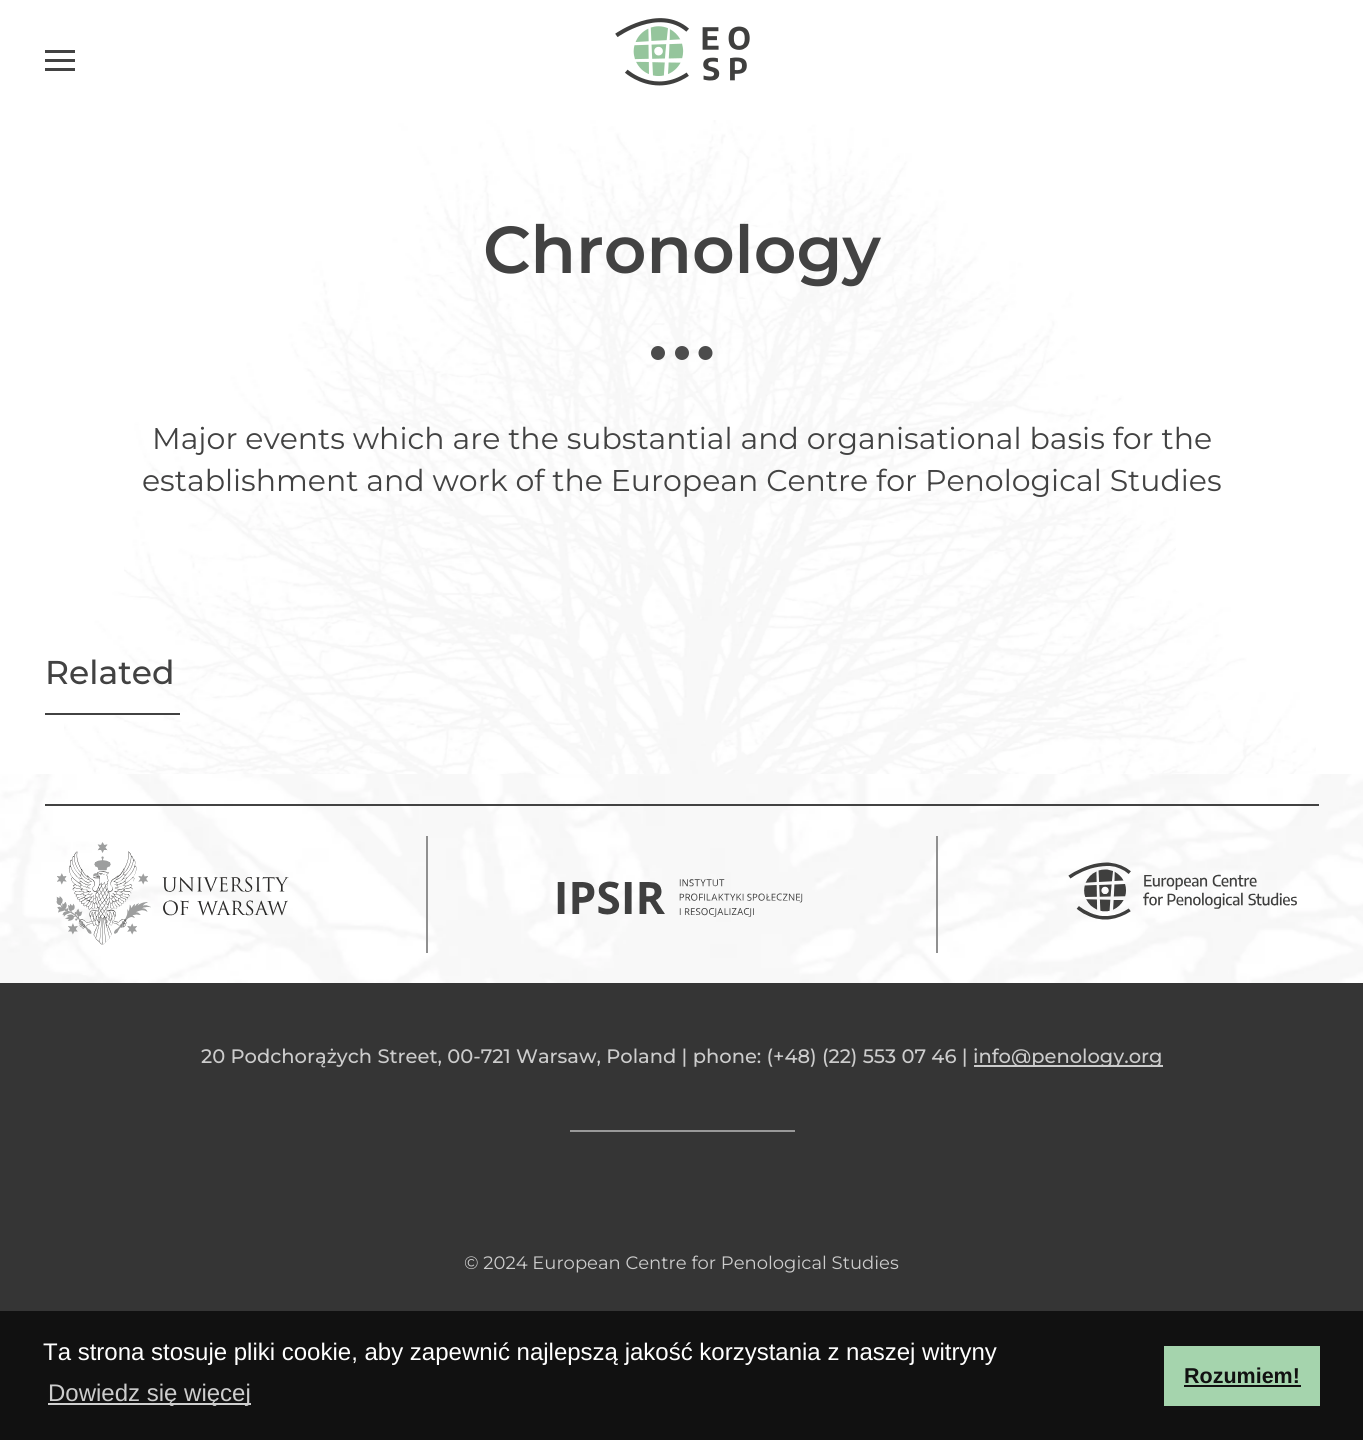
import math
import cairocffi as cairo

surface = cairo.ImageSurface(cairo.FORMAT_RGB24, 1363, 1440)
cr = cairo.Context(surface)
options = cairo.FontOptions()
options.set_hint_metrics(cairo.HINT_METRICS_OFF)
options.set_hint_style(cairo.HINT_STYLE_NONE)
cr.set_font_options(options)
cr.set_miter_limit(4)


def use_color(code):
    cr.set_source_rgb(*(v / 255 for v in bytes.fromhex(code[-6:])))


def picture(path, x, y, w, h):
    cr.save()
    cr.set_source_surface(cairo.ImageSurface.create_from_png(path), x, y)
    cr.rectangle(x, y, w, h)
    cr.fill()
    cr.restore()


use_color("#ffffff")
cr.paint()
use_color("#424242")
cr.rectangle(45, 50, 30, 3)
cr.fill()
cr.rectangle(45, 59, 30, 3)
cr.fill()
cr.rectangle(45, 68, 30, 3)
cr.fill()
picture("img1.png", 615, 18, 135, 68)
picture("img2.png", 124, 120, 1052, 471)
cr.select_font_face("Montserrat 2 Thin")
cr.set_font_size(66.25)
cr.move_to(483, 273)
cr.show_text("Chronology")
use_color("#4c4c4c")
cr.new_path()
cr.arc(658, 353, 7, 0, 2 * math.pi)
cr.fill()
cr.arc(682, 353, 7, 0, 2 * math.pi)
cr.fill()
cr.arc(705.5, 353, 7, 0, 2 * math.pi)
cr.fill()
cr.select_font_face("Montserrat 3 Thin")
cr.set_font_size(30)
use_color("#424242")
cr.move_to(152, 449)
cr.show_text("Major events which are the substantial and organisational basis for the")
cr.move_to(142, 491)
cr.show_text("establishment and work of the European Centre for Penological Studies")
picture("img3.png", 64, 591, 1252, 183)
cr.select_font_face("Montserrat Thin")
cr.set_font_size(33)
cr.move_to(45, 684)
cr.show_text("Related")
cr.rectangle(45, 713, 135, 2)
cr.fill()
picture("img4.png", 0, 774, 1363, 209)
cr.rectangle(45, 804, 1274, 2)
cr.fill()
picture("img5.png", 56, 842, 233, 103)
use_color("#909090")
cr.rectangle(426, 836, 2, 117)
cr.fill()
picture("img6.png", 557, 879, 246, 38)
cr.rectangle(936, 836, 2, 117)
cr.fill()
picture("img7.png", 1068, 862, 229, 58)
use_color("#353535")
cr.rectangle(0, 983, 1363, 328)
cr.fill()
cr.set_font_size(19.5)
use_color("#cccccc")
cr.move_to(201, 1063)
cr.show_text("20 Podchorążych Street, 00-721 Warsaw, Poland | phone: (+48) (22) 553 07 46 |")
cr.rectangle(974, 1065, 189, 2)
cr.fill()
cr.move_to(973, 1063)
cr.show_text("info@penology.org")
use_color("#999999")
cr.rectangle(570, 1130, 225, 2)
cr.fill()
cr.select_font_face("Montserrat 3 Thin")
cr.set_font_size(18)
use_color("#cccccc")
cr.move_to(464, 1269)
cr.show_text("© 2024 European Centre for Penological Studies")
use_color("#111111")
cr.rectangle(0, 1311, 1363, 129)
cr.fill()
cr.select_font_face("Liberation Sans")
cr.set_font_size(24)
use_color("#ffffff")
cr.move_to(43, 1360)
cr.show_text("Ta strona stosuje pliki cookie, aby zapewnić najlepszą jakość korzystania z naszej witryny")
use_color("#cfcfcf")
cr.rectangle(48, 1403, 203, 2)
cr.fill()
use_color("#cccccc")
cr.move_to(48, 1401)
cr.show_text("Dowiedz się więcej")
use_color("#a5d4ad")
cr.rectangle(1164, 1346, 156, 60)
cr.fill()
cr.select_font_face("Liberation Sans", cairo.FONT_SLANT_NORMAL, cairo.FONT_WEIGHT_BOLD)
cr.set_font_size(21.5)
use_color("#111111")
cr.move_to(1184, 1383)
cr.show_text("Rozumiem!")
cr.rectangle(1184, 1385, 117, 2)
cr.fill()
surface.write_to_png("result.png")
